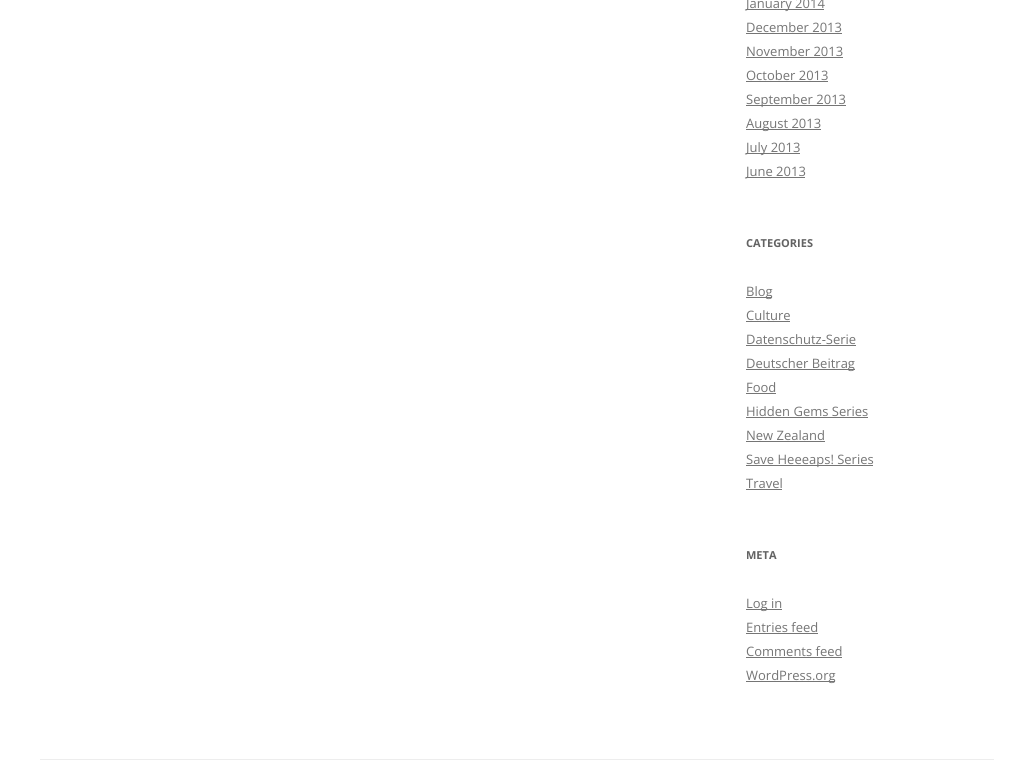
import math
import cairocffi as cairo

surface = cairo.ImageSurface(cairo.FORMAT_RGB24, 1034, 776)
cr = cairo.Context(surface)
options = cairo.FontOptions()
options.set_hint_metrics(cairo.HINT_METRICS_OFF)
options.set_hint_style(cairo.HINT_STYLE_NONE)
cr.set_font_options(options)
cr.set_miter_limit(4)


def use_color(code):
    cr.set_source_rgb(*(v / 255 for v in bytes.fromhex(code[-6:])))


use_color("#ffffff")
cr.paint()
use_color("#757575")
cr.rectangle(746, 9, 78, 1)
cr.fill()
cr.select_font_face("Open Sans")
cr.set_font_size(13)
cr.move_to(746, 8)
cr.show_text("January 2014")
cr.move_to(746, 32)
cr.show_text("December 2013")
cr.rectangle(746, 33, 96, 1)
cr.fill()
cr.move_to(746, 56)
cr.show_text("November 2013")
cr.rectangle(746, 57, 97, 1)
cr.fill()
cr.move_to(746, 80)
cr.show_text("October 2013")
cr.rectangle(746, 81, 82, 1)
cr.fill()
cr.rectangle(746, 105, 100, 1)
cr.fill()
cr.move_to(746, 104)
cr.show_text("September 2013")
cr.rectangle(746, 129, 75, 1)
cr.fill()
cr.move_to(746, 128)
cr.show_text("August 2013")
cr.rectangle(746, 153, 54, 1)
cr.fill()
cr.move_to(746, 152)
cr.show_text("July 2013")
cr.rectangle(746, 177, 59, 1)
cr.fill()
cr.move_to(746, 176)
cr.show_text("June 2013")
cr.select_font_face("Open Sans", cairo.FONT_SLANT_NORMAL, cairo.FONT_WEIGHT_BOLD)
cr.set_font_size(11)
use_color("#636363")
cr.move_to(746, 247)
cr.show_text("CATEGORIES")
use_color("#757575")
cr.rectangle(746, 297, 26, 1)
cr.fill()
cr.select_font_face("Open Sans")
cr.set_font_size(13)
cr.move_to(746, 296)
cr.show_text("Blog")
cr.move_to(746, 320)
cr.show_text("Culture")
cr.rectangle(746, 321, 44, 1)
cr.fill()
cr.move_to(746, 344)
cr.show_text("Datenschutz-Serie")
cr.rectangle(746, 345, 110, 1)
cr.fill()
cr.rectangle(746, 369, 109, 1)
cr.fill()
cr.move_to(746, 368)
cr.show_text("Deutscher Beitrag")
cr.move_to(746, 392)
cr.show_text("Food")
cr.rectangle(746, 393, 30, 1)
cr.fill()
cr.move_to(746, 416)
cr.show_text("Hidden Gems Series")
cr.rectangle(746, 417, 122, 1)
cr.fill()
cr.move_to(746, 440)
cr.show_text("New Zealand")
cr.rectangle(746, 441, 79, 1)
cr.fill()
cr.rectangle(746, 465, 127, 1)
cr.fill()
cr.move_to(746, 464)
cr.show_text("Save Heeeaps! Series")
cr.move_to(746, 488)
cr.show_text("Travel")
cr.rectangle(746, 489, 36, 1)
cr.fill()
cr.select_font_face("Open Sans", cairo.FONT_SLANT_NORMAL, cairo.FONT_WEIGHT_BOLD)
cr.set_font_size(11)
use_color("#636363")
cr.move_to(746, 559)
cr.show_text("META")
use_color("#757575")
cr.rectangle(746, 609, 36, 1)
cr.fill()
cr.select_font_face("Open Sans")
cr.set_font_size(13)
cr.move_to(746, 608)
cr.show_text("Log in")
cr.move_to(746, 632)
cr.show_text("Entries feed")
cr.rectangle(746, 633, 72, 1)
cr.fill()
cr.move_to(746, 656)
cr.show_text("Comments feed")
cr.rectangle(746, 657, 96, 1)
cr.fill()
cr.rectangle(746, 681, 89, 1)
cr.fill()
cr.move_to(746, 680)
cr.show_text("WordPress.org")
use_color("#ededed")
cr.rectangle(40, 759, 954, 1)
cr.fill()
surface.write_to_png("result.png")
